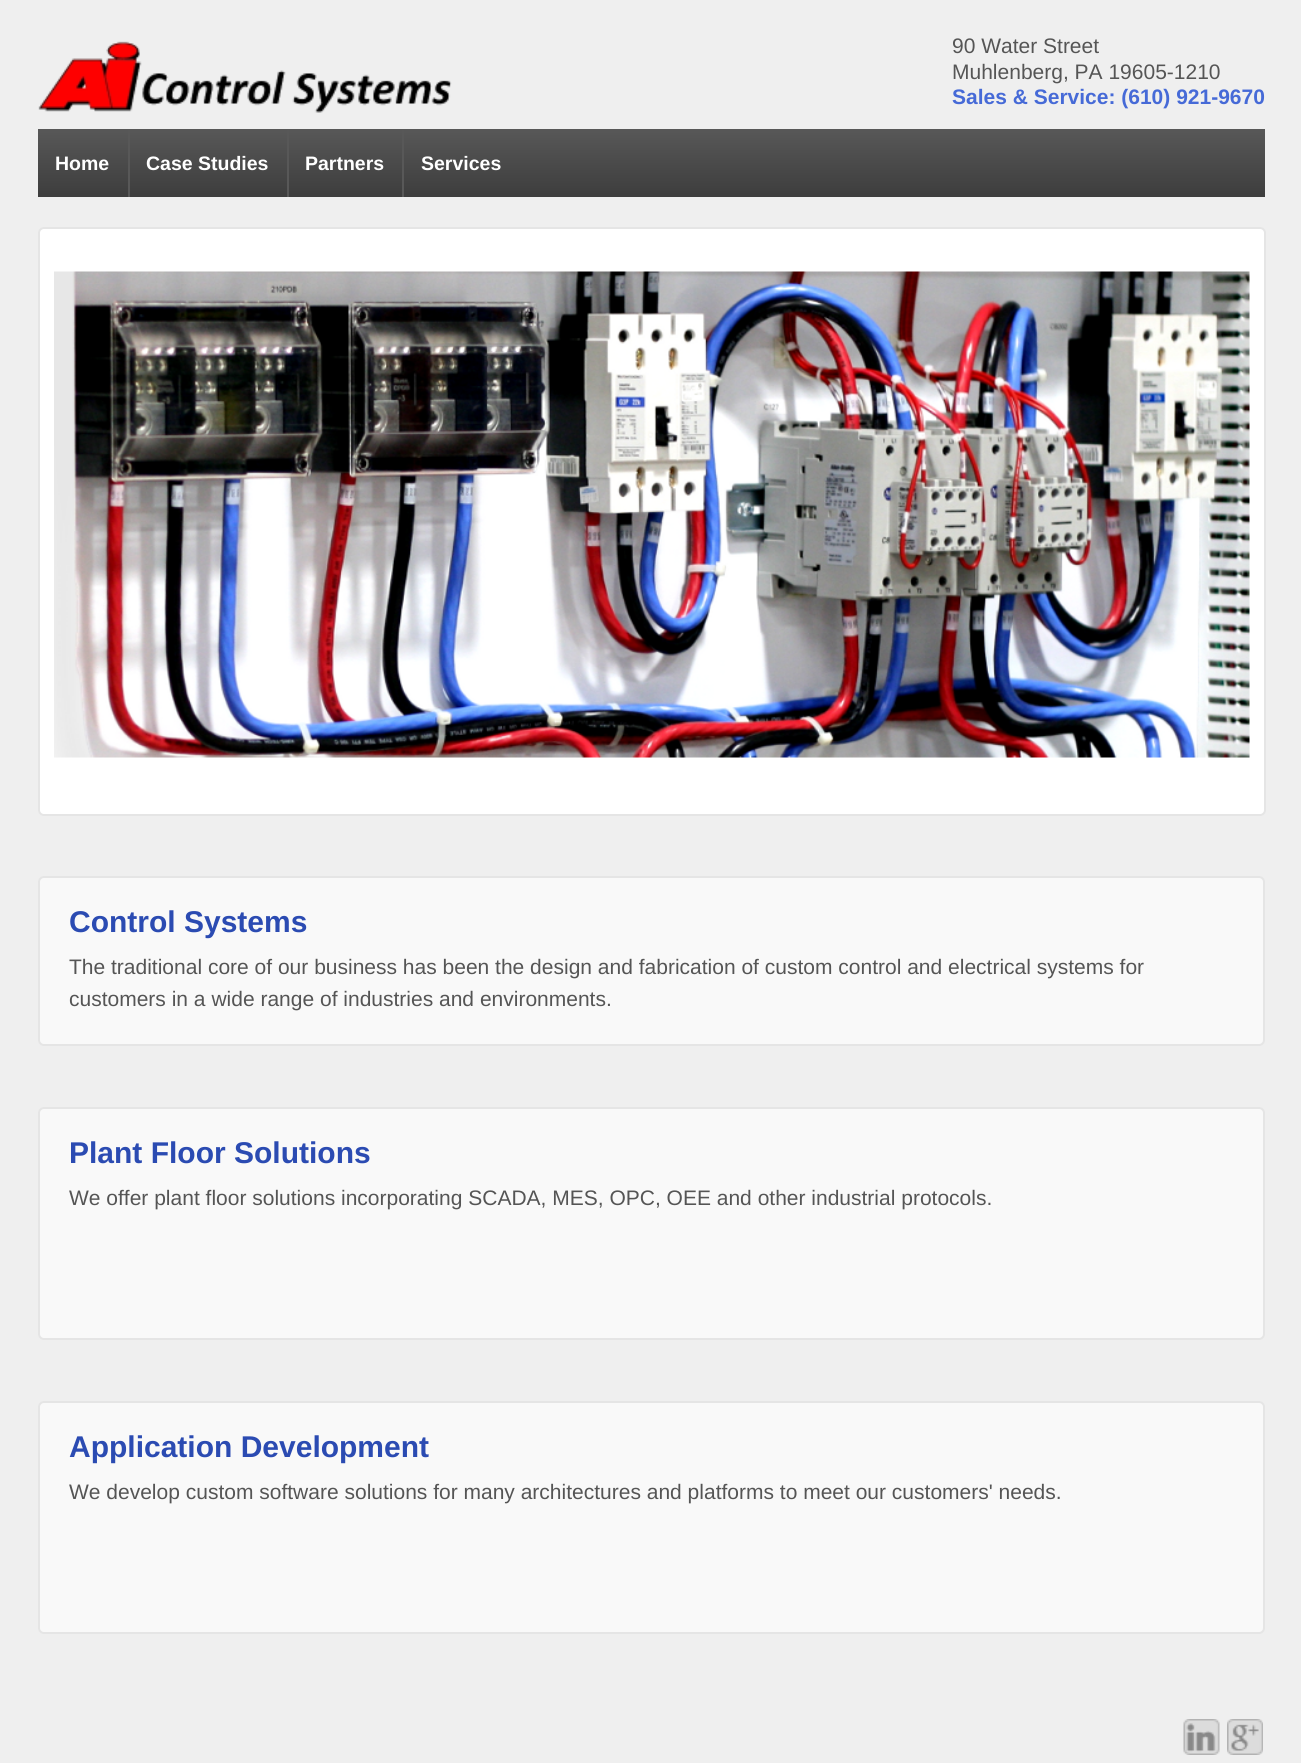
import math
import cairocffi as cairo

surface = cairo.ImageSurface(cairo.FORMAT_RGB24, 1301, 1763)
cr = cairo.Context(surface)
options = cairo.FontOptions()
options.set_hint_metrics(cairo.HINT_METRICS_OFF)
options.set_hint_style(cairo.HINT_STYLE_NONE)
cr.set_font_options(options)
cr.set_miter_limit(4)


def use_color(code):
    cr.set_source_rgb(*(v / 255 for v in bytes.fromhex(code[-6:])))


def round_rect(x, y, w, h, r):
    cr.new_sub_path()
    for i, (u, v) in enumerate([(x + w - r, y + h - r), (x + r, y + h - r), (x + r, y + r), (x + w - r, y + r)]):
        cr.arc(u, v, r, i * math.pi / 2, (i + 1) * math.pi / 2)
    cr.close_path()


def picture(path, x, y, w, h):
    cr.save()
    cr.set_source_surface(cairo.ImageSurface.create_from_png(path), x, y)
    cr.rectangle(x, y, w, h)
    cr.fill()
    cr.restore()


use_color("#efefef")
cr.paint()
picture("img1.png", 38, 41, 414, 72)
cr.select_font_face("Liberation Sans")
cr.set_font_size(21)
use_color("#555555")
cr.move_to(952, 53)
cr.show_text("90 Water Street")
cr.move_to(952, 79)
cr.show_text("Muhlenberg, PA 19605-1210")
cr.select_font_face("Liberation Sans", cairo.FONT_SLANT_NORMAL, cairo.FONT_WEIGHT_BOLD)
use_color("#466ad7")
cr.move_to(952, 104)
cr.show_text("Sales & Service: (610) 921-9670")
gradient = cairo.LinearGradient(651, 129, 651, 197)
gradient.add_color_stop_rgba(0, 0.345, 0.345, 0.345, 1)
gradient.add_color_stop_rgba(1, 0.239, 0.239, 0.239, 1)
cr.set_source(gradient)
cr.rectangle(38, 129, 1227, 68)
cr.fill()
cr.set_font_size(19.5)
use_color("#ffffff")
cr.move_to(55, 170)
cr.show_text("Home")
use_color("#585858")
cr.rectangle(128, 129, 2, 68)
cr.fill()
use_color("#ffffff")
cr.move_to(146, 170)
cr.show_text("Case Studies")
use_color("#585858")
cr.rectangle(287, 129, 2, 68)
cr.fill()
use_color("#ffffff")
cr.move_to(305, 170)
cr.show_text("Partners")
use_color("#585858")
cr.rectangle(402, 129, 2, 68)
cr.fill()
use_color("#ffffff")
cr.move_to(421, 170)
cr.show_text("Services")
round_rect(39, 228, 1226, 587, 5)
cr.fill_preserve()
use_color("#e5e5e5")
cr.stroke()
picture("img2.png", 54, 271, 1196, 487)
use_color("#f9f9f9")
round_rect(39, 877, 1225, 168, 5)
cr.fill_preserve()
use_color("#e5e5e5")
cr.stroke()
cr.set_font_size(30)
use_color("#2b4bb2")
cr.move_to(69, 932)
cr.show_text("Control Systems")
cr.select_font_face("Liberation Sans")
cr.set_font_size(21)
use_color("#555555")
cr.move_to(69, 974)
cr.show_text("The traditional core of our business has been the design and fabrication of custom control and electrical systems for")
cr.move_to(69, 1006)
cr.show_text("customers in a wide range of industries and environments.")
use_color("#f9f9f9")
round_rect(39, 1108, 1225, 231, 5)
cr.fill_preserve()
use_color("#e5e5e5")
cr.stroke()
cr.select_font_face("Liberation Sans", cairo.FONT_SLANT_NORMAL, cairo.FONT_WEIGHT_BOLD)
cr.set_font_size(30)
use_color("#2b4bb2")
cr.move_to(69, 1163)
cr.show_text("Plant Floor Solutions")
cr.select_font_face("Liberation Sans")
cr.set_font_size(21)
use_color("#555555")
cr.move_to(69, 1205)
cr.show_text("We offer plant floor solutions incorporating SCADA, MES, OPC, OEE and other industrial protocols.")
use_color("#f9f9f9")
round_rect(39, 1402, 1225, 231, 5)
cr.fill_preserve()
use_color("#e5e5e5")
cr.stroke()
cr.select_font_face("Liberation Sans", cairo.FONT_SLANT_NORMAL, cairo.FONT_WEIGHT_BOLD)
cr.set_font_size(30)
use_color("#2b4bb2")
cr.move_to(69, 1457)
cr.show_text("Application Development")
cr.select_font_face("Liberation Sans")
cr.set_font_size(21)
use_color("#555555")
cr.move_to(69, 1499)
cr.show_text("We develop custom software solutions for many architectures and platforms to meet our customers' needs.")
picture("img3.png", 1183, 1719, 37, 36)
picture("img4.png", 1227, 1719, 36, 36)
surface.write_to_png("result.png")
